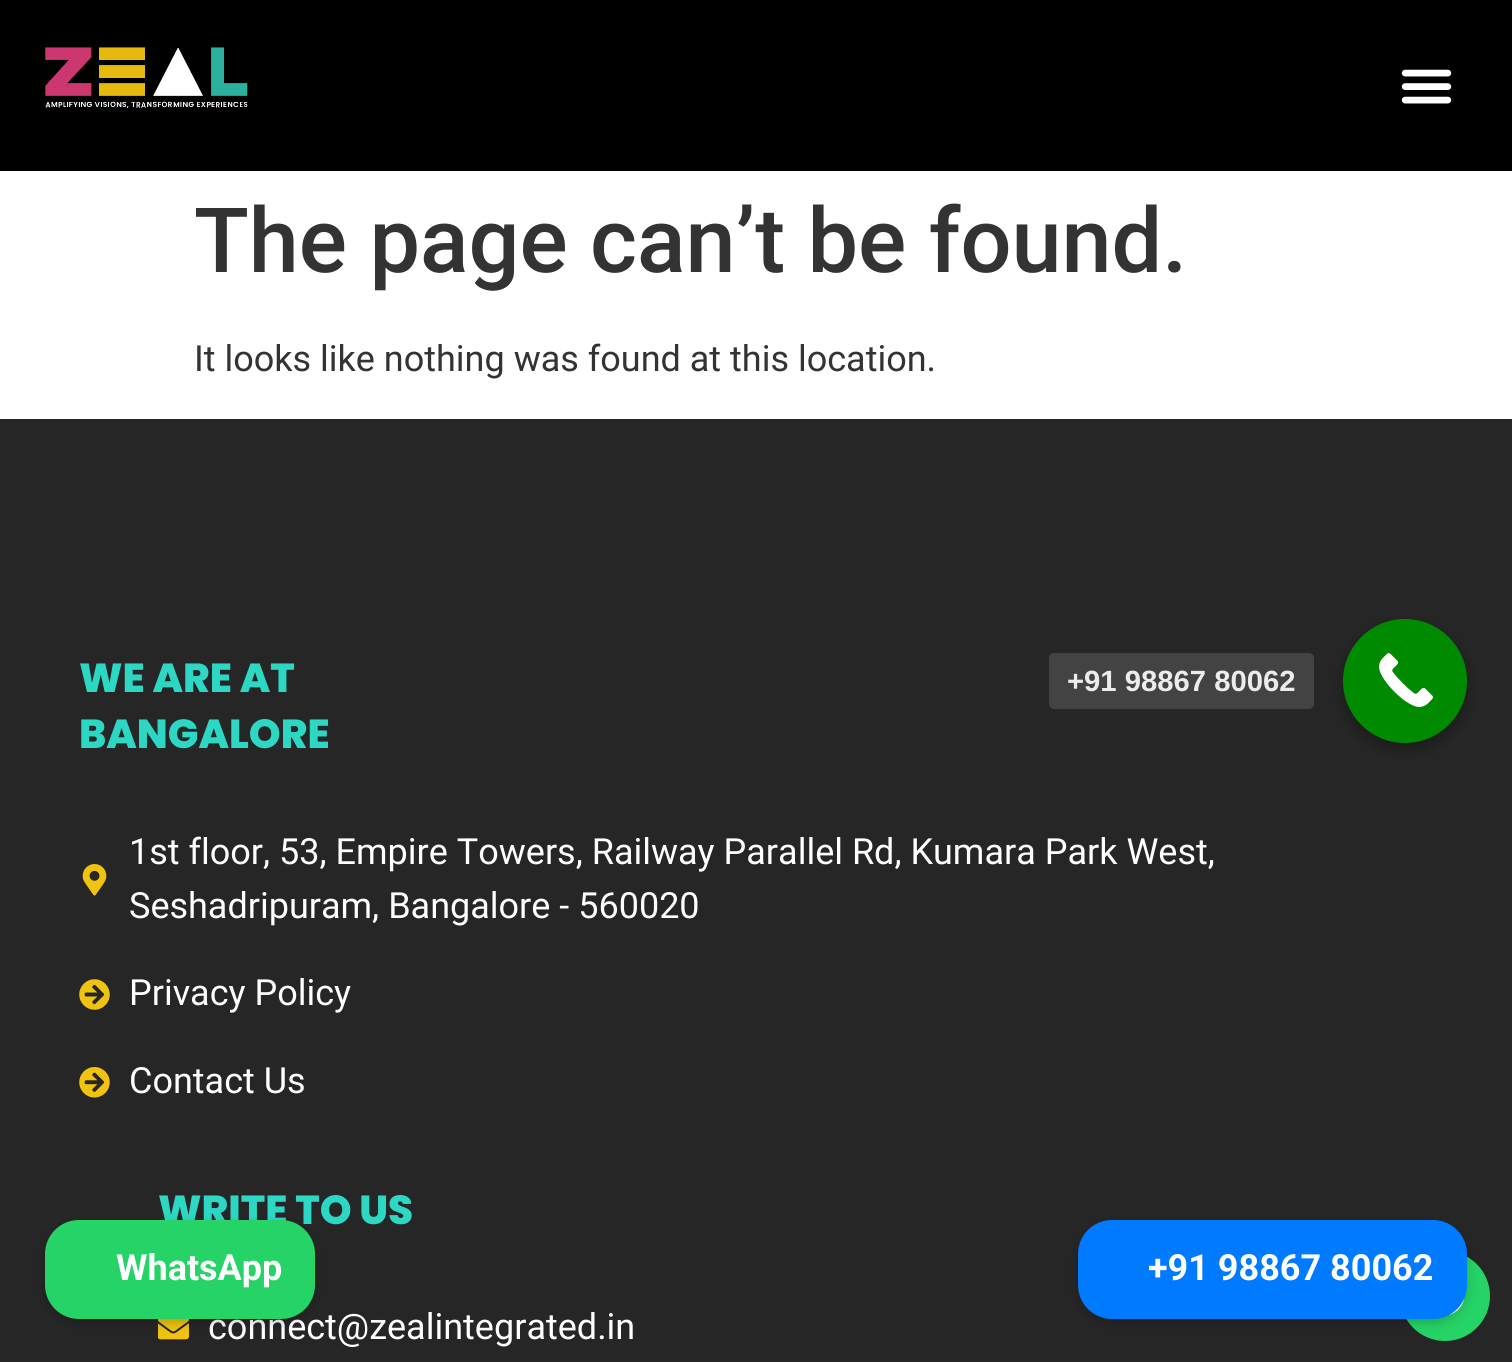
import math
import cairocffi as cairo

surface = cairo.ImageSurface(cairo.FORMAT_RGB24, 1512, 1362)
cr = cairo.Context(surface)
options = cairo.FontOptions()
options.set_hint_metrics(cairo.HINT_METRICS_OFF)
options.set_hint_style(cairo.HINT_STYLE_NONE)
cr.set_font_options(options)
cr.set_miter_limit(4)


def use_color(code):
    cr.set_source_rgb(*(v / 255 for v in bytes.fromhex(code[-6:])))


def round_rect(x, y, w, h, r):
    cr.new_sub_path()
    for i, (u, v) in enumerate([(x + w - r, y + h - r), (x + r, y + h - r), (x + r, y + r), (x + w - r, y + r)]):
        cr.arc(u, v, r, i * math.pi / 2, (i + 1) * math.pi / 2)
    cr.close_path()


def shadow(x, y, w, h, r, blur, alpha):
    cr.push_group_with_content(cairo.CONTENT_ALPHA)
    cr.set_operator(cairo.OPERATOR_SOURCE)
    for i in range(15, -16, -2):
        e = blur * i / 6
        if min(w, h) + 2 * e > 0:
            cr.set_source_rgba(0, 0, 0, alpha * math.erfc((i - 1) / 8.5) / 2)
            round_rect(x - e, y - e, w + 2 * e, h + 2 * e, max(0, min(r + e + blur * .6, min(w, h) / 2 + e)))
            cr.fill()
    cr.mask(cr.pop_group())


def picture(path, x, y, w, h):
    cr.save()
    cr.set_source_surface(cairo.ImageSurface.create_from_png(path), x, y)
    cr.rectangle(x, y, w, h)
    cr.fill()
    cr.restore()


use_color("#ffffff")
cr.paint()
use_color("#000000")
cr.rectangle(0, 0, 1512, 171)
cr.fill()
picture("img1.png", 45, 47, 203, 61)
picture("img2.png", 1401, 69, 51, 35)
cr.select_font_face("Roboto Medium")
cr.set_font_size(90)
use_color("#333333")
cr.move_to(194, 272)
cr.show_text("The page can’t be found.")
cr.select_font_face("Roboto")
cr.set_font_size(36)
cr.move_to(194, 371)
cr.show_text("It looks like nothing was found at this location.")
use_color("#262626")
cr.rectangle(0, 419, 1512, 943)
cr.fill()
cr.select_font_face("Poppins ExtraBold")
cr.set_font_size(40.5)
use_color("#2cd8c4")
cr.move_to(79, 692)
cr.show_text("WE ARE AT")
cr.move_to(79, 748)
cr.show_text("BANGALORE")
picture("img3.png", 82, 864, 25, 32)
cr.select_font_face("Roboto")
cr.set_font_size(36)
use_color("#ffffff")
cr.move_to(129, 864)
cr.show_text("1st floor, 53, Empire Towers, Railway Parallel Rd, Kumara Park West,")
cr.move_to(129, 918)
cr.show_text("Seshadripuram, Bangalore - 560020")
picture("img4.png", 79, 979, 31, 31)
cr.move_to(129, 1005)
cr.show_text("Privacy Policy")
picture("img5.png", 79, 1067, 31, 31)
cr.move_to(129, 1093)
cr.show_text("Contact Us")
cr.select_font_face("Poppins ExtraBold")
cr.set_font_size(40.5)
use_color("#2cd8c4")
cr.move_to(158, 1224)
cr.show_text("WRITE TO US")
picture("img6.png", 158, 1319, 31, 21)
cr.select_font_face("Roboto")
cr.set_font_size(36)
use_color("#ffffff")
cr.move_to(208, 1339)
cr.show_text("connect@zealintegrated.in")
use_color("#25d366")
cr.new_path()
cr.arc(1445, 1296, 45, 0, 2 * math.pi)
cr.fill()
picture("img7.png", 1447, 1296, 18, 20)
use_color("#000000")
shadow(1343, 626, 124, 123, 61.5, 7, 0.3)
use_color("#008a00")
cr.arc(1405, 681, 62, 0, 2 * math.pi)
cr.fill()
picture("img8.png", 1379, 653, 54, 54)
use_color("#434343")
round_rect(1049, 653, 265, 56, 5)
cr.fill()
cr.select_font_face("Liberation Sans", cairo.FONT_SLANT_NORMAL, cairo.FONT_WEIGHT_BOLD)
cr.set_font_size(29.25)
use_color("#ececec")
cr.move_to(1067, 691)
cr.show_text("+91 98867 80062")
use_color("#000000")
shadow(45, 1224, 270, 99, 34, 5.5, 0.2)
use_color("#25d366")
round_rect(45, 1220, 270, 99, 34)
cr.fill()
cr.select_font_face("Roboto", cairo.FONT_SLANT_NORMAL, cairo.FONT_WEIGHT_BOLD)
cr.set_font_size(36)
use_color("#ffffff")
cr.move_to(116, 1280)
cr.show_text("WhatsApp")
use_color("#000000")
shadow(1078, 1224, 389, 99, 34, 5.5, 0.2)
use_color("#007bff")
round_rect(1078, 1220, 389, 99, 34)
cr.fill()
use_color("#ffffff")
cr.move_to(1148, 1280)
cr.show_text("+91 98867 80062")
surface.write_to_png("result.png")
